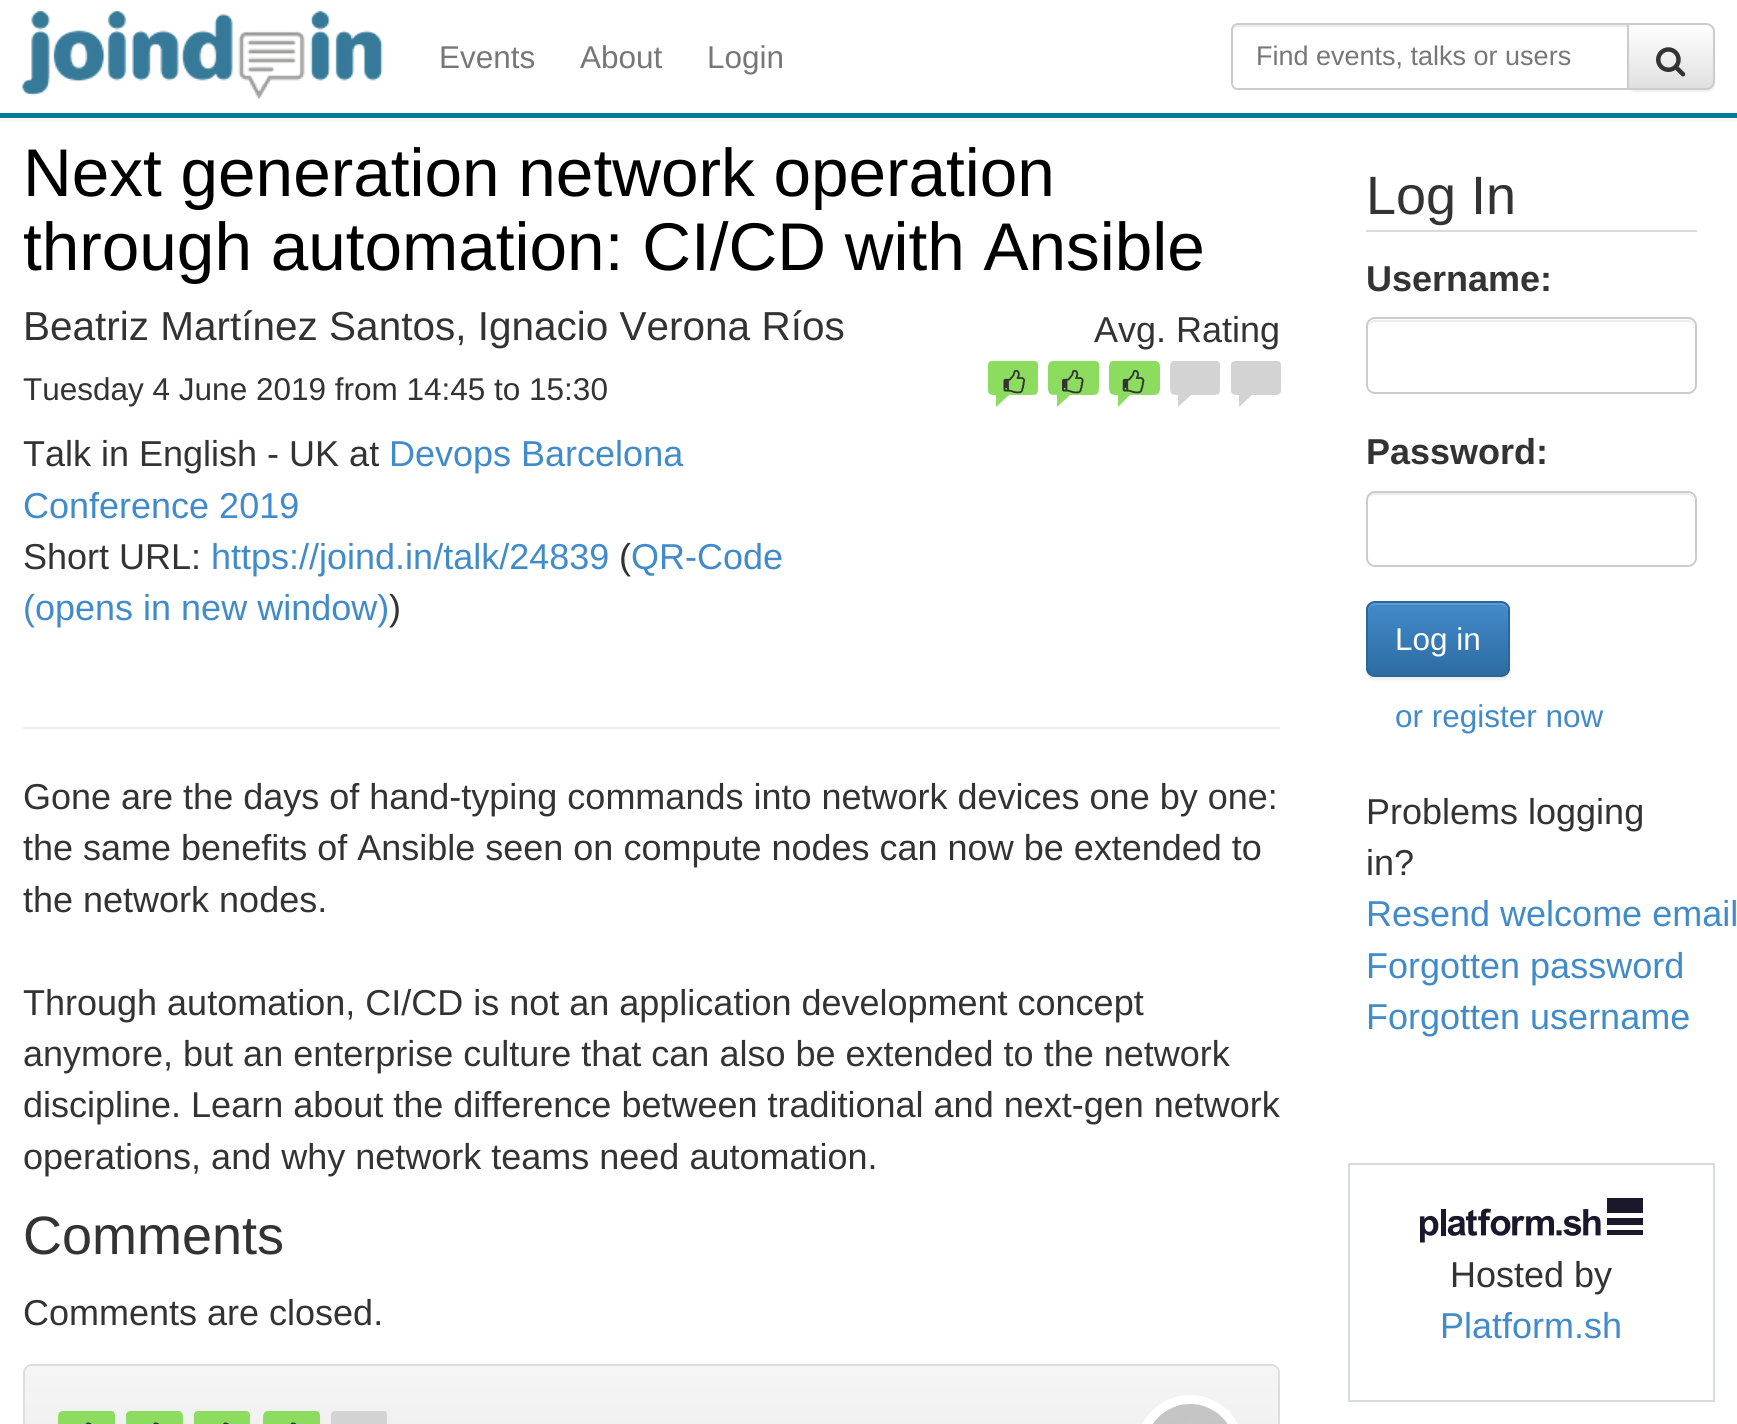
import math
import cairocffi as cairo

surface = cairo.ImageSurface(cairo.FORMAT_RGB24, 1737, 1424)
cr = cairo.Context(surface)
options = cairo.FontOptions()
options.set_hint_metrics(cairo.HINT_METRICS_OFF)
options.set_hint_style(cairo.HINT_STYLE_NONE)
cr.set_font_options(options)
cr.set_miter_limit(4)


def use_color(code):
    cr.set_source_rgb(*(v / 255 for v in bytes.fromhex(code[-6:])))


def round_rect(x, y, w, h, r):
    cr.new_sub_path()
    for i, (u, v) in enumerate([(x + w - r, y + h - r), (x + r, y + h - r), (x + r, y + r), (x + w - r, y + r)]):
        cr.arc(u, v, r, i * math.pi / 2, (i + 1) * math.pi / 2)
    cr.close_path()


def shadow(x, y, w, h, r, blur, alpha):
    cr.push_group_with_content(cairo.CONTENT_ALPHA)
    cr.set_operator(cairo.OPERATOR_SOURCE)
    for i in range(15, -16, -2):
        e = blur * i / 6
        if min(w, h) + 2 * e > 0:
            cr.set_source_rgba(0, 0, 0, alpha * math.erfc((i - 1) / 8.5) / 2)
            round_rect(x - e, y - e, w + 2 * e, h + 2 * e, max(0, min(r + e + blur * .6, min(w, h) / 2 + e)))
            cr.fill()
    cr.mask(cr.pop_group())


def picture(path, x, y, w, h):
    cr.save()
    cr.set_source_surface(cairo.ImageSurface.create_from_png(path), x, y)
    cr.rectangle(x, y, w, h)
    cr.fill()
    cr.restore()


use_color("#ffffff")
cr.paint()
cr.save()
cr.rectangle(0, 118, 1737, 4)
cr.clip()
use_color("#000000")
shadow(0, 2, 1737, 117, 0, 5.5, 0.07)
cr.restore()
use_color("#007b97")
cr.rectangle(0, 113, 1737, 5)
cr.fill()
picture("img1.png", 22, 11, 361, 89)
cr.select_font_face("Liberation Sans")
cr.set_font_size(31.5)
use_color("#777777")
cr.move_to(439, 68)
cr.show_text("Events")
cr.move_to(580, 68)
cr.show_text("About")
cr.move_to(707, 68)
cr.show_text("Login")
use_color("#000000")
shadow(1627, 25, 88, 67, 9, 1, 0.07)
cr.save()
cr.new_path()
cr.move_to(1627, 23)
cr.line_to(1706, 23)
cr.curve_to(1711, 23, 1715, 27, 1715, 32)
cr.line_to(1715, 81)
cr.curve_to(1715, 86, 1711, 90, 1706, 90)
cr.line_to(1627, 90)
cr.close_path()
cr.clip()
gradient = cairo.LinearGradient(1671, 25, 1671, 88)
gradient.add_color_stop_rgba(0, 1, 1, 1, 1)
gradient.add_color_stop_rgba(1, 0.878, 0.878, 0.878, 1)
cr.set_source(gradient)
cr.rectangle(1629, 25, 86, 63)
cr.fill()
cr.restore()
cr.new_path()
cr.move_to(1628, 24)
cr.line_to(1706, 24)
cr.curve_to(1710.5, 24, 1714, 27.5, 1714, 32)
cr.line_to(1714, 81)
cr.curve_to(1714, 85.5, 1710.5, 89, 1706, 89)
cr.line_to(1628, 89)
cr.close_path()
use_color("#cccccc")
cr.stroke()
use_color("#ffffff")
cr.new_path()
cr.move_to(1238, 23)
cr.line_to(1629, 23)
cr.line_to(1629, 90)
cr.line_to(1238, 90)
cr.curve_to(1234, 90, 1231, 87, 1231, 83)
cr.line_to(1231, 30)
cr.curve_to(1231, 26, 1234, 23, 1238, 23)
cr.close_path()
cr.fill()
use_color("#ececec")
cr.new_path()
cr.move_to(1238, 27)
cr.line_to(1627, 27)
cr.line_to(1627, 25)
cr.line_to(1238, 25)
cr.curve_to(1235, 25, 1233, 27, 1233, 30)
cr.line_to(1233, 32)
cr.curve_to(1233, 29, 1235, 27, 1238, 27)
cr.close_path()
cr.fill()
cr.new_path()
cr.move_to(1238, 24)
cr.line_to(1628, 24)
cr.line_to(1628, 89)
cr.line_to(1238, 89)
cr.curve_to(1234.5, 89, 1232, 86.5, 1232, 83)
cr.line_to(1232, 30)
cr.curve_to(1232, 26.5, 1234.5, 24, 1238, 24)
cr.close_path()
use_color("#cccccc")
cr.stroke()
cr.set_font_size(27)
use_color("#777777")
cr.move_to(1256, 65)
cr.show_text("Find events, talks or users")
picture("img2.png", 1656, 47, 30, 30)
use_color("#eeeeee")
cr.rectangle(23, 727, 1257, 2)
cr.fill()
cr.set_font_size(67.5)
use_color("#000000")
cr.move_to(23, 196)
cr.show_text("Next generation network operation")
cr.move_to(23, 270)
cr.show_text("through automation: CI/CD with Ansible")
cr.set_font_size(40.5)
use_color("#333333")
cr.move_to(23, 340)
cr.show_text("Beatriz Martínez Santos, Ignacio Verona Ríos")
cr.set_font_size(31.5)
cr.move_to(23, 400)
cr.show_text("Tuesday 4 June 2019 from 14:45 to 15:30")
cr.set_font_size(36)
cr.move_to(23, 466)
cr.show_text("Talk in English - UK at")
use_color("#428bca")
cr.move_to(389, 466)
cr.show_text("Devops Barcelona")
cr.move_to(23, 518)
cr.show_text("Conference 2019")
use_color("#333333")
cr.move_to(23, 569)
cr.show_text("Short URL:")
use_color("#428bca")
cr.move_to(211, 569)
cr.show_text("https://joind.in/talk/24839")
use_color("#333333")
cr.move_to(619, 569)
cr.show_text("(")
use_color("#428bca")
cr.move_to(631, 569)
cr.show_text("QR-Code")
cr.move_to(23, 620)
cr.show_text("(opens in new window)")
use_color("#333333")
cr.move_to(389, 620)
cr.show_text(")")
cr.move_to(1094, 342)
cr.show_text("Avg. Rating")
use_color("#8cdc60")
cr.new_path()
cr.move_to(992, 361)
cr.line_to(1035, 361)
cr.curve_to(1039, 362, 1038, 366, 1038, 369)
cr.line_to(1038, 386)
cr.curve_to(1038, 394, 1038, 395, 1030, 395)
cr.line_to(1009, 395)
cr.line_to(996, 407)
cr.line_to(996, 395)
cr.curve_to(988, 395, 988, 394, 988, 386)
cr.line_to(988, 369)
cr.curve_to(988, 366, 987, 361, 992, 361)
cr.close_path()
cr.fill()
picture("img3.png", 1003, 369, 23, 25)
cr.new_path()
cr.move_to(1053, 361)
cr.line_to(1096, 361)
cr.curve_to(1100, 362, 1099, 366, 1099, 369)
cr.line_to(1099, 386)
cr.curve_to(1099, 394, 1098, 395, 1091, 395)
cr.line_to(1070, 395)
cr.line_to(1057, 407)
cr.line_to(1057, 395)
cr.curve_to(1049, 395, 1048, 394, 1048, 386)
cr.line_to(1048, 369)
cr.curve_to(1048, 366, 1048, 361, 1053, 361)
cr.close_path()
cr.fill()
picture("img4.png", 1062, 369, 22, 25)
cr.new_path()
cr.move_to(1113, 361)
cr.line_to(1156, 361)
cr.curve_to(1160, 362, 1160, 366, 1160, 369)
cr.line_to(1160, 386)
cr.curve_to(1160, 394, 1159, 395, 1151, 395)
cr.line_to(1130, 395)
cr.line_to(1118, 407)
cr.line_to(1118, 395)
cr.curve_to(1110, 395, 1109, 394, 1109, 386)
cr.line_to(1109, 369)
cr.curve_to(1109, 366, 1109, 361, 1113, 361)
cr.close_path()
cr.fill()
picture("img5.png", 1122, 369, 23, 25)
use_color("#d3d3d3")
cr.new_path()
cr.move_to(1174, 361)
cr.line_to(1217, 361)
cr.curve_to(1221, 362, 1220, 366, 1220, 369)
cr.line_to(1220, 386)
cr.curve_to(1220, 394, 1220, 395, 1212, 395)
cr.line_to(1191, 395)
cr.line_to(1178, 407)
cr.line_to(1178, 395)
cr.curve_to(1171, 395, 1170, 394, 1170, 386)
cr.line_to(1170, 369)
cr.curve_to(1170, 366, 1170, 361, 1174, 361)
cr.close_path()
cr.fill()
cr.new_path()
cr.move_to(1235, 361)
cr.line_to(1278, 361)
cr.curve_to(1282, 362, 1281, 366, 1281, 369)
cr.line_to(1281, 386)
cr.curve_to(1281, 394, 1281, 395, 1273, 395)
cr.line_to(1252, 395)
cr.line_to(1239, 407)
cr.line_to(1239, 395)
cr.curve_to(1231, 395, 1231, 394, 1231, 386)
cr.line_to(1231, 369)
cr.curve_to(1231, 366, 1230, 361, 1235, 361)
cr.close_path()
cr.fill()
use_color("#333333")
cr.move_to(23, 809)
cr.show_text("Gone are the days of hand-typing commands into network devices one by one:")
cr.move_to(23, 860)
cr.show_text("the same benefits of Ansible seen on compute nodes can now be extended to")
cr.move_to(23, 912)
cr.show_text("the network nodes.")
cr.move_to(23, 1015)
cr.show_text("Through automation, CI/CD is not an application development concept")
cr.move_to(23, 1066)
cr.show_text("anymore, but an enterprise culture that can also be extended to the network")
cr.move_to(23, 1117)
cr.show_text("discipline. Learn about the difference between traditional and next-gen network")
cr.move_to(23, 1169)
cr.show_text("operations, and why network teams need automation.")
cr.set_font_size(54)
cr.move_to(23, 1254)
cr.show_text("Comments")
cr.set_font_size(36)
cr.move_to(23, 1325)
cr.show_text("Comments are closed.")
round_rect(24, 1365, 1255, 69, 8)
use_color("#dddddd")
cr.stroke()
gradient = cairo.LinearGradient(651, 1366, 651, 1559)
gradient.add_color_stop_rgba(0, 0.961, 0.961, 0.961, 1)
gradient.add_color_stop_rgba(1, 0.91, 0.91, 0.91, 1)
cr.set_source(gradient)
cr.new_path()
cr.move_to(32, 1366)
cr.line_to(1271, 1366)
cr.curve_to(1275, 1366, 1278, 1369, 1278, 1373)
cr.line_to(1278, 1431)
cr.line_to(25, 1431)
cr.line_to(25, 1373)
cr.curve_to(25, 1369, 28, 1366, 32, 1366)
cr.close_path()
cr.fill()
use_color("#8cdc60")
cr.new_path()
cr.move_to(63, 1411)
cr.line_to(111, 1411)
cr.curve_to(116, 1411, 115, 1417, 115, 1420)
cr.line_to(115, 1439)
cr.curve_to(115, 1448, 115, 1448, 106, 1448)
cr.line_to(82, 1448)
cr.line_to(68, 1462)
cr.line_to(68, 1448)
cr.curve_to(59, 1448, 58, 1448, 58, 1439)
cr.line_to(58, 1420)
cr.curve_to(58, 1416, 58, 1411, 63, 1411)
cr.close_path()
cr.fill()
picture("img6.png", 85, 1422, 7, 2)
cr.new_path()
cr.move_to(131, 1411)
cr.line_to(179, 1411)
cr.curve_to(183, 1411, 183, 1417, 183, 1420)
cr.line_to(183, 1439)
cr.curve_to(183, 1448, 182, 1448, 173, 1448)
cr.line_to(150, 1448)
cr.line_to(135, 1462)
cr.line_to(135, 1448)
cr.curve_to(127, 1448, 126, 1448, 126, 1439)
cr.line_to(126, 1420)
cr.curve_to(126, 1416, 125, 1411, 131, 1411)
cr.close_path()
cr.fill()
picture("img7.png", 153, 1422, 6, 2)
cr.new_path()
cr.move_to(198, 1411)
cr.line_to(246, 1411)
cr.curve_to(251, 1411, 250, 1417, 250, 1420)
cr.line_to(250, 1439)
cr.curve_to(250, 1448, 250, 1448, 241, 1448)
cr.line_to(217, 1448)
cr.line_to(203, 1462)
cr.line_to(203, 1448)
cr.curve_to(194, 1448, 194, 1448, 194, 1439)
cr.line_to(194, 1420)
cr.curve_to(194, 1416, 193, 1411, 198, 1411)
cr.close_path()
cr.fill()
picture("img8.png", 223, 1422, 6, 2)
cr.new_path()
cr.move_to(268, 1411)
cr.line_to(316, 1411)
cr.curve_to(321, 1411, 320, 1417, 320, 1420)
cr.line_to(320, 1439)
cr.curve_to(320, 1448, 319, 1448, 311, 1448)
cr.line_to(287, 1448)
cr.line_to(273, 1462)
cr.line_to(273, 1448)
cr.curve_to(264, 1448, 263, 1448, 263, 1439)
cr.line_to(263, 1420)
cr.curve_to(263, 1416, 263, 1411, 268, 1411)
cr.close_path()
cr.fill()
picture("img9.png", 290, 1422, 7, 2)
use_color("#d3d3d3")
cr.new_path()
cr.move_to(335, 1411)
cr.line_to(384, 1411)
cr.curve_to(388, 1411, 387, 1417, 387, 1420)
cr.line_to(387, 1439)
cr.curve_to(387, 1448, 387, 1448, 378, 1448)
cr.line_to(355, 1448)
cr.line_to(340, 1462)
cr.line_to(340, 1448)
cr.curve_to(331, 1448, 331, 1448, 331, 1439)
cr.line_to(331, 1420)
cr.curve_to(331, 1416, 330, 1411, 335, 1411)
cr.close_path()
cr.fill()
round_rect(1140.5, 1399.5, 99, 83, 49.5)
use_color("#ffffff")
cr.set_line_width(9)
cr.stroke()
picture("img10.png", 1153, 1404, 75, 20)
use_color("#d7dcdf")
cr.rectangle(1366, 230, 331, 2)
cr.fill()
cr.set_font_size(54)
use_color("#333333")
cr.move_to(1366, 214)
cr.show_text("Log In")
cr.select_font_face("Liberation Sans", cairo.FONT_SLANT_NORMAL, cairo.FONT_WEIGHT_BOLD)
cr.set_font_size(36)
cr.move_to(1366, 291)
cr.show_text("Username:")
use_color("#ececec")
cr.new_path()
cr.move_to(1375, 322)
cr.line_to(1688, 322)
cr.curve_to(1691, 322, 1694, 325, 1694, 328)
cr.curve_to(1694, 324, 1692, 320, 1687, 320)
cr.line_to(1375, 320)
cr.curve_to(1370, 320, 1368, 324, 1368, 328)
cr.curve_to(1368, 325, 1371, 322, 1375, 322)
cr.close_path()
cr.fill()
round_rect(1367, 318, 329, 75, 8)
use_color("#cccccc")
cr.set_line_width(2)
cr.stroke()
use_color("#333333")
cr.move_to(1366, 464)
cr.show_text("Password:")
use_color("#ececec")
cr.new_path()
cr.move_to(1375, 495)
cr.line_to(1688, 495)
cr.curve_to(1691, 495, 1694, 498, 1694, 502)
cr.line_to(1694, 500)
cr.curve_to(1694, 496, 1691, 493, 1687, 493)
cr.line_to(1375, 493)
cr.curve_to(1371, 493, 1368, 496, 1368, 500)
cr.line_to(1368, 502)
cr.curve_to(1368, 498, 1371, 495, 1375, 495)
cr.close_path()
cr.fill()
round_rect(1367, 492, 329, 74, 8)
use_color("#cccccc")
cr.stroke()
use_color("#000000")
shadow(1366, 603, 144, 77, 9, 1, 0.07)
cr.save()
round_rect(1366, 601, 144, 76, 9)
cr.clip()
gradient = cairo.LinearGradient(1438, 603, 1438, 675)
gradient.add_color_stop_rgba(0, 0.259, 0.545, 0.792, 1)
gradient.add_color_stop_rgba(1, 0.176, 0.424, 0.635, 1)
cr.set_source(gradient)
cr.rectangle(1366, 603, 144, 72)
cr.fill()
cr.restore()
cr.set_source_rgba(1, 1, 1, 0.15)
cr.new_path()
cr.move_to(1375, 605)
cr.line_to(1501, 605)
cr.curve_to(1504, 605, 1508, 608, 1508, 612)
cr.line_to(1508, 610)
cr.curve_to(1508, 606, 1505, 603, 1501, 603)
cr.line_to(1375, 603)
cr.curve_to(1371, 603, 1368, 606, 1368, 610)
cr.line_to(1368, 612)
cr.curve_to(1368, 608, 1371, 605, 1375, 605)
cr.close_path()
cr.fill()
round_rect(1367, 602, 142, 74, 8)
use_color("#2b669a")
cr.stroke()
cr.select_font_face("Liberation Sans")
cr.set_font_size(31.5)
use_color("#ffffff")
cr.move_to(1395, 650)
cr.show_text("Log in")
use_color("#428bca")
cr.move_to(1395, 727)
cr.show_text("or register now")
cr.set_font_size(36)
use_color("#333333")
cr.move_to(1366, 824)
cr.show_text("Problems logging")
cr.move_to(1366, 875)
cr.show_text("in?")
use_color("#428bca")
cr.move_to(1366, 926)
cr.show_text("Resend welcome email")
cr.move_to(1366, 978)
cr.show_text("Forgotten password")
cr.move_to(1366, 1029)
cr.show_text("Forgotten username")
cr.rectangle(1349, 1164, 365, 237)
use_color("#d7dcdf")
cr.stroke()
picture("img11.png", 1420, 1198, 223, 45)
use_color("#333333")
cr.move_to(1450, 1287)
cr.show_text("Hosted by")
use_color("#428bca")
cr.move_to(1440, 1338)
cr.show_text("Platform.sh")
surface.write_to_png("result.png")
